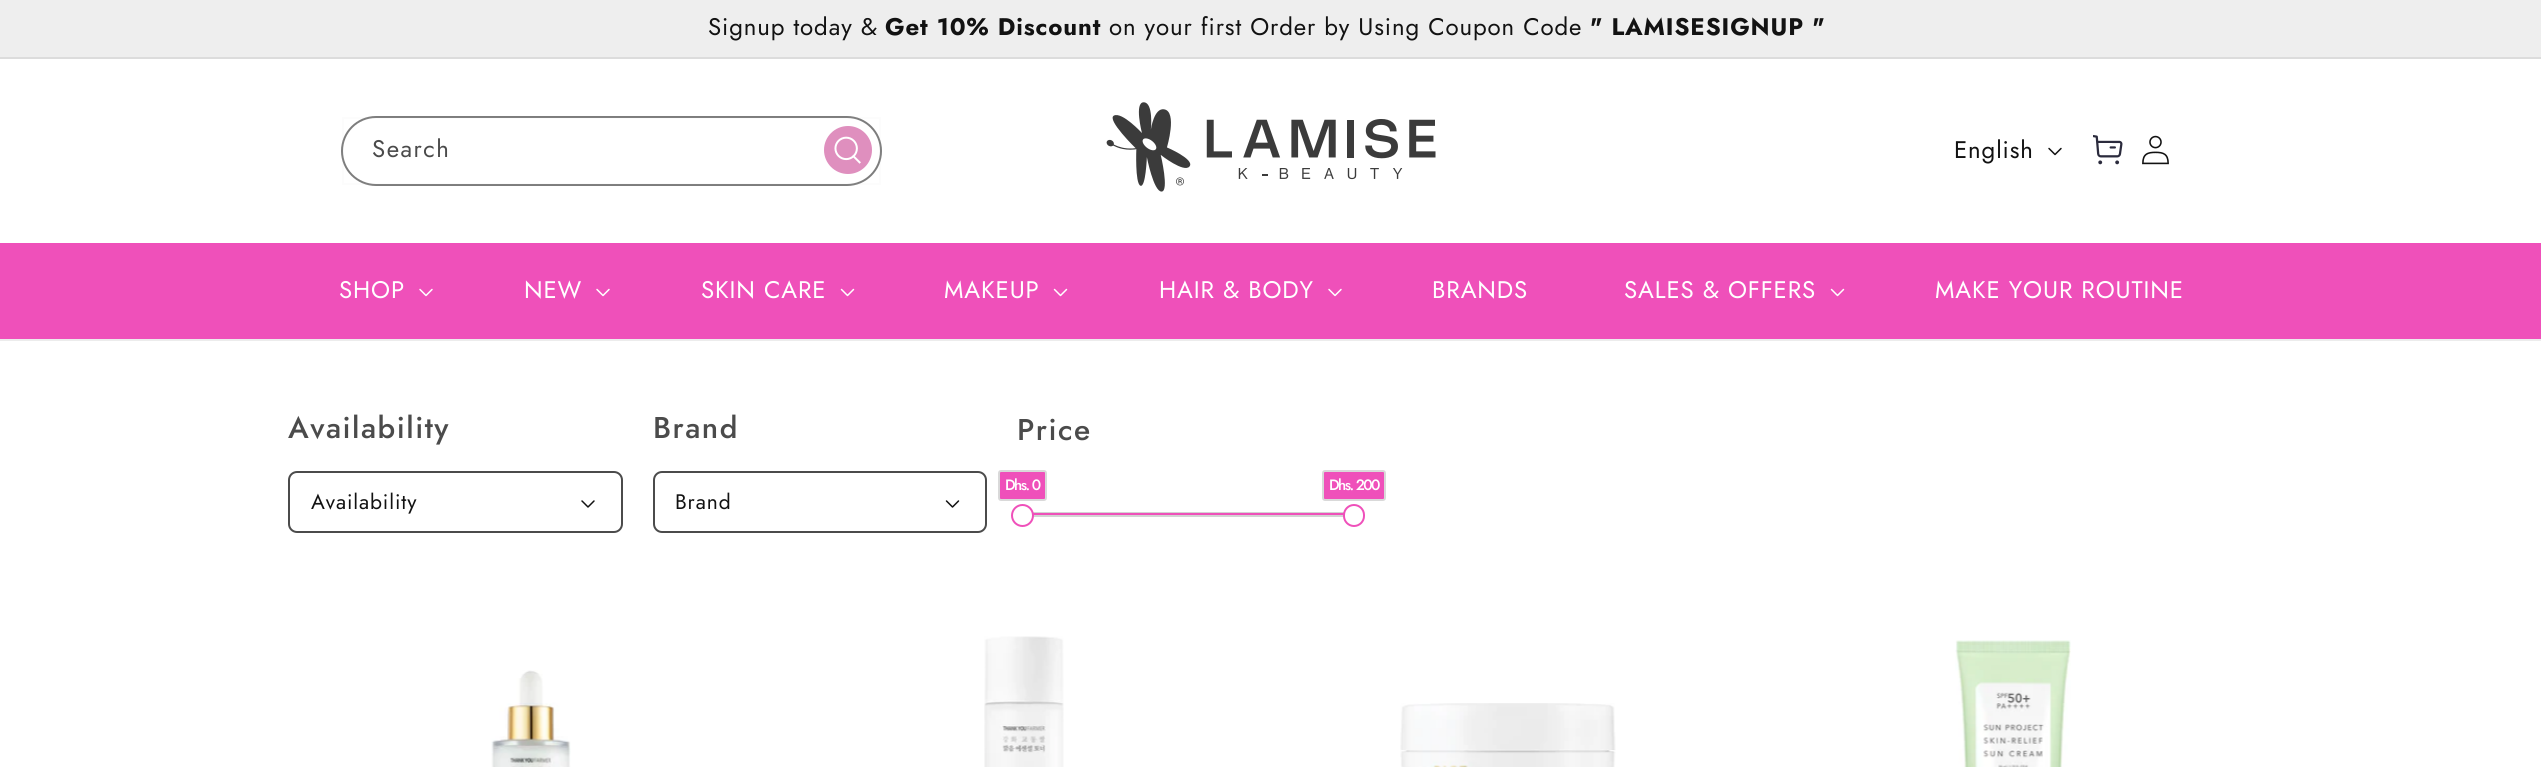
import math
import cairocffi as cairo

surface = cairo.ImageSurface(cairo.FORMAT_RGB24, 2541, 767)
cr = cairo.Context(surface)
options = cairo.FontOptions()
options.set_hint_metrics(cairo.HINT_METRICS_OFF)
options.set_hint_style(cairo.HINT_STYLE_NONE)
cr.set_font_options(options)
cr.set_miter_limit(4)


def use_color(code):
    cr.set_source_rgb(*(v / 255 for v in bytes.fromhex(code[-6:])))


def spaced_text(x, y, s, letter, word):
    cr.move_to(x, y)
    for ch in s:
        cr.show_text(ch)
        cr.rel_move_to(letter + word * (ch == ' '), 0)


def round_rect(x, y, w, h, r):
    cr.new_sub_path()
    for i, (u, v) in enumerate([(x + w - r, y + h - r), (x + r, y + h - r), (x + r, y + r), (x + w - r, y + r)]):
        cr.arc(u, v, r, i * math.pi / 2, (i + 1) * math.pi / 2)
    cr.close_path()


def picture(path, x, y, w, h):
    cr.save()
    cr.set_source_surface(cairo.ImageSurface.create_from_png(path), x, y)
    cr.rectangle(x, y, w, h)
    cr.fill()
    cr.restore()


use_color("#ffffff")
cr.paint()
use_color("#eeeeee")
cr.rectangle(0, 0, 2541, 57)
cr.fill()
use_color("#dcdcdc")
cr.rectangle(0, 57, 2541, 2)
cr.fill()
cr.select_font_face("Jost")
cr.set_font_size(24)
use_color("#121212")
spaced_text(708, 35, "Signup today &", 0.9, 0)
cr.select_font_face("Jost", cairo.FONT_SLANT_NORMAL, cairo.FONT_WEIGHT_BOLD)
spaced_text(885, 35, "Get 10% Discount", 0.9, 0)
cr.select_font_face("Jost")
spaced_text(1109, 35, "on your first Order by Using Coupon Code", 0.9, 0)
cr.select_font_face("Jost", cairo.FONT_SLANT_NORMAL, cairo.FONT_WEIGHT_BOLD)
spaced_text(1590, 35, "\" LAMISESIGNUP \"", 0.9, 0)
use_color("#ececec")
cr.rectangle(0, 339, 2541, 2)
cr.fill()
picture("img1.png", 824, 126, 48, 48)
round_rect(342, 117, 539, 68, 34)
use_color("#7d7d7d")
cr.stroke()
cr.rectangle(343, 118, 537, 66)
cr.set_source_rgba(0.761, 0.761, 0.761, 0.05)
cr.stroke()
cr.select_font_face("Jost")
use_color("#4b4b4b")
spaced_text(372, 157, "Search", 1.5, 0)
picture("img2.png", 1106, 102, 330, 90)
use_color("#121212")
spaced_text(1954, 158, "English", 0.9, 0)
picture("img3.png", 2048, 147, 14, 9)
picture("img4.png", 2093, 135, 30, 30)
picture("img5.png", 2142, 135, 27, 30)
use_color("#ef50ba")
cr.rectangle(0, 243, 2541, 96)
cr.fill()
use_color("#ffffff")
spaced_text(339, 298, "SHOP", 0.9, 0)
picture("img6.png", 419, 288, 14, 9)
spaced_text(524, 298, "NEW", 0.9, 0)
picture("img6.png", 596, 288, 14, 9)
spaced_text(701, 298, "SKIN CARE", 0.9, 0)
picture("img7.png", 840, 288, 15, 9)
spaced_text(944, 298, "MAKEUP", 0.9, 0)
picture("img7.png", 1053, 288, 15, 9)
spaced_text(1159, 298, "HAIR & BODY", 0.9, 0)
picture("img6.png", 1328, 288, 14, 9)
spaced_text(1432, 298, "BRANDS", 0.9, 0)
spaced_text(1624, 298, "SALES & OFFERS", 0.9, 0)
picture("img7.png", 1830, 288, 15, 9)
spaced_text(1935, 298, "MAKE YOUR ROUTINE", 0.9, 0)
cr.select_font_face("Jost Medium")
cr.set_font_size(30)
use_color("#4b4b4b")
spaced_text(288, 438, "Availability", 1.5, 0)
round_rect(289, 472, 333, 60, 8)
cr.stroke()
cr.select_font_face("Jost")
cr.set_font_size(21)
use_color("#121212")
spaced_text(311, 509, "Availability", 0.9, 0)
picture("img8.png", 581, 500, 14, 8)
cr.select_font_face("Jost Medium")
cr.set_font_size(30)
use_color("#4b4b4b")
spaced_text(653, 438, "Brand", 1.5, 0)
round_rect(654, 472, 332, 60, 8)
cr.stroke()
cr.select_font_face("Jost")
cr.set_font_size(21)
use_color("#121212")
spaced_text(675, 509, "Brand", 0.9, 0)
picture("img9.png", 945, 500, 15, 8)
cr.select_font_face("Jost Medium")
cr.set_font_size(30)
use_color("#4b4b4b")
spaced_text(1017, 440, "Price", 1.5, 0)
cr.rectangle(1018, 513, 333, 3)
use_color("#d3d3d3")
cr.stroke()
use_color("#ef50ba")
cr.rectangle(1033, 513, 317, 2)
cr.fill()
use_color("#ffffff")
cr.arc(1022.5, 515.5, 10.5, 0, 2 * math.pi)
cr.fill_preserve()
use_color("#ef50ba")
cr.stroke()
round_rect(999, 471, 47, 29, 2)
cr.fill_preserve()
use_color("#d9d9d9")
cr.stroke()
cr.set_font_size(15)
use_color("#ffffff")
spaced_text(1005, 490, "Dhs. 0", -1.5, 0)
round_rect(1344, 505, 20, 21, 10)
cr.fill_preserve()
use_color("#ef50ba")
cr.stroke()
round_rect(1323, 471, 62, 29, 2)
cr.fill_preserve()
use_color("#d9d9d9")
cr.stroke()
use_color("#ffffff")
spaced_text(1329, 490, "Dhs. 200", -1.5, 0)
picture("img10.png", 491, 670, 80, 97)
picture("img11.png", 984, 636, 80, 131)
picture("img12.png", 1400, 703, 216, 64)
picture("img13.png", 1955, 640, 116, 127)
surface.write_to_png("result.png")
